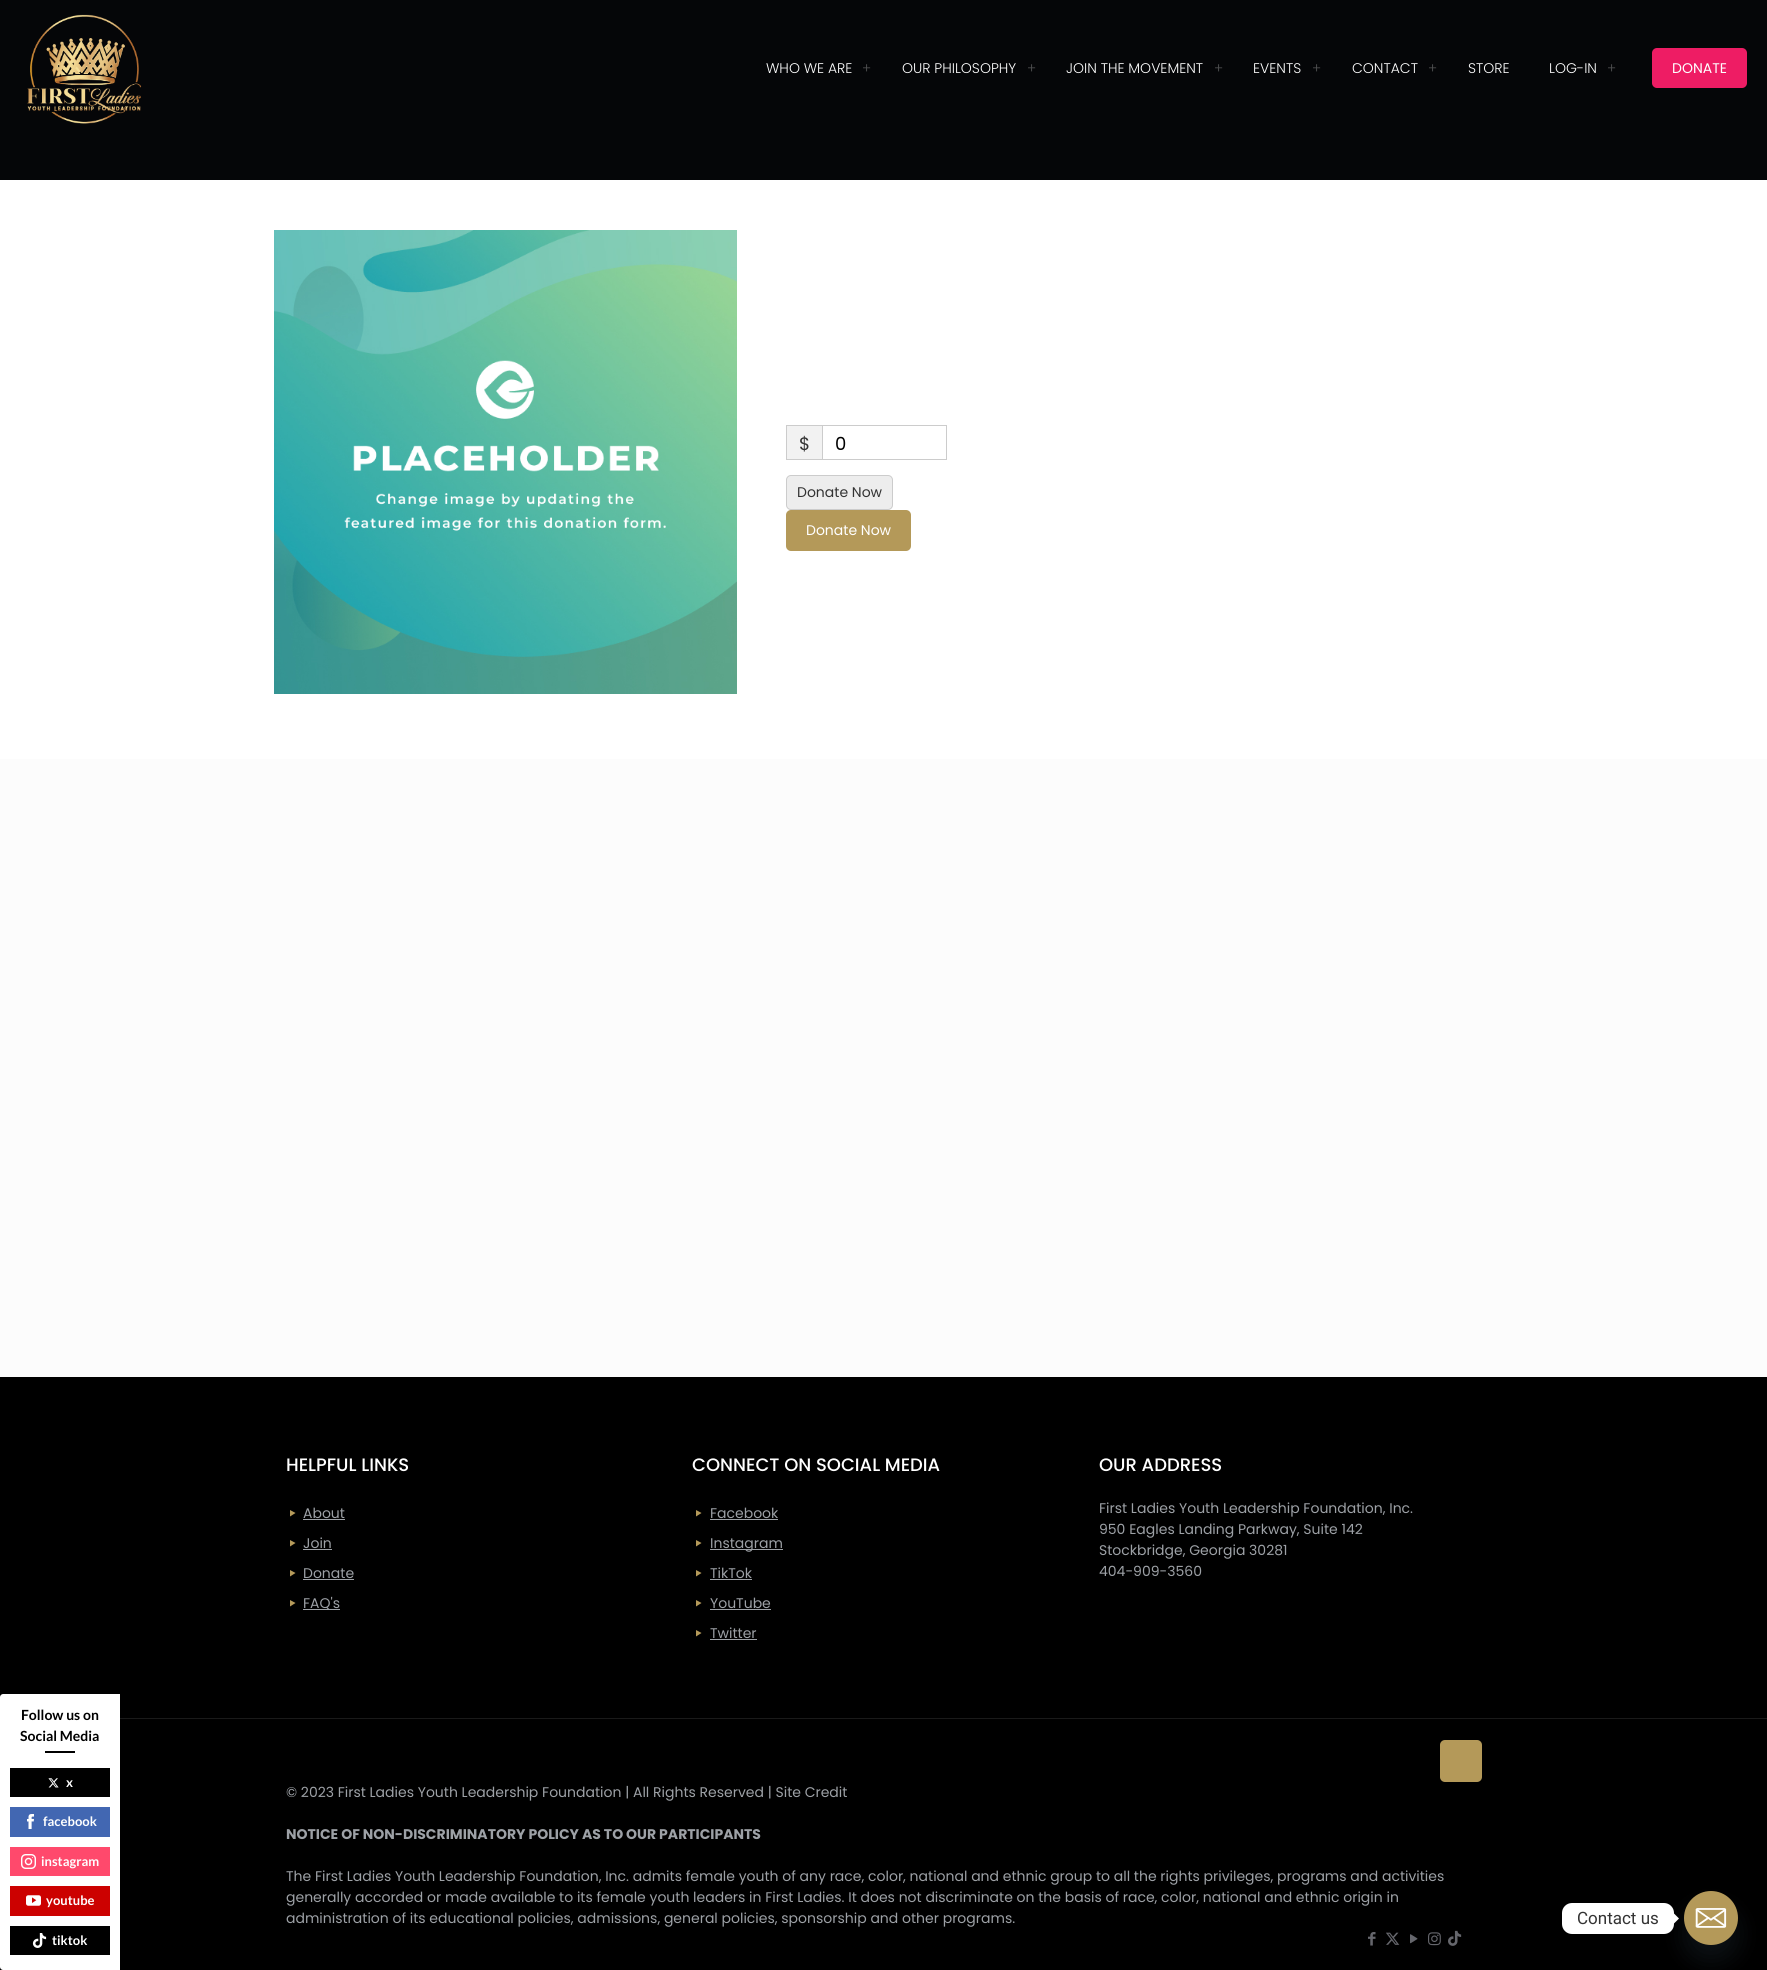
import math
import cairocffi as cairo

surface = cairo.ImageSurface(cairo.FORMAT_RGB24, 1767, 1970)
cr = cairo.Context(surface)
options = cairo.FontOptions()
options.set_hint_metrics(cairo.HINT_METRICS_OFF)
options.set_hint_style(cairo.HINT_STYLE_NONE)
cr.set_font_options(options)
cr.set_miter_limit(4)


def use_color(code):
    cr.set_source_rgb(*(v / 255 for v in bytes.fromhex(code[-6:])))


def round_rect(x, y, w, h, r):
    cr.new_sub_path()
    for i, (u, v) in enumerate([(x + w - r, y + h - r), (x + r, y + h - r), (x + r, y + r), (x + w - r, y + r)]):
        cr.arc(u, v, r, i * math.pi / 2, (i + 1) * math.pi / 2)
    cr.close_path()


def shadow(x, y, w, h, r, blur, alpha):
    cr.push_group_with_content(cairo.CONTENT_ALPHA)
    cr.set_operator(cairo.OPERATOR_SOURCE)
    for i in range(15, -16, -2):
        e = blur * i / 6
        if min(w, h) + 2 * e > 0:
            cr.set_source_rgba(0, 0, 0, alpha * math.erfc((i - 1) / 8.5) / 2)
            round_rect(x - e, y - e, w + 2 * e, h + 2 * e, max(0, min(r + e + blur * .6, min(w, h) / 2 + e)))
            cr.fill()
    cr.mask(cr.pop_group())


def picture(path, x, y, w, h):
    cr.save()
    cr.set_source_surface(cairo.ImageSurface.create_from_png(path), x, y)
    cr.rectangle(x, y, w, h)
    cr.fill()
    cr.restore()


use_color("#fcfcfc")
cr.paint()
use_color("#000000")
cr.rectangle(0, 1377, 1767, 593)
cr.fill()
use_color("#ffffff")
cr.new_path()
cr.move_to(3, 1694)
cr.line_to(120, 1694)
cr.line_to(120, 1970)
cr.line_to(3, 1970)
cr.curve_to(1.5, 1970, 0, 1968.5, 0, 1967)
cr.line_to(0, 1697)
cr.curve_to(0, 1695.5, 1.5, 1694, 3, 1694)
cr.close_path()
cr.fill()
cr.select_font_face("Lato", cairo.FONT_SLANT_NORMAL, cairo.FONT_WEIGHT_BOLD)
cr.set_font_size(14)
use_color("#000000")
cr.move_to(21, 1720)
cr.show_text("Follow us on")
cr.move_to(20, 1741)
cr.show_text("Social Media")
cr.rectangle(45, 1751, 30, 2)
cr.fill()
cr.rectangle(10, 1768, 100, 29)
cr.fill()
picture("img1.png", 48, 1778, 11, 10)
cr.set_font_size(13)
use_color("#ffffff")
cr.move_to(66, 1787)
cr.show_text("x")
use_color("#4267b2")
cr.rectangle(10, 1807, 100, 30)
cr.fill()
picture("img2.png", 27, 1814, 7, 15)
use_color("#ffffff")
cr.move_to(43, 1826)
cr.show_text("facebook")
use_color("#ff496c")
cr.rectangle(10, 1847, 100, 29)
cr.fill()
picture("img3.png", 21, 1854, 15, 15)
use_color("#ffffff")
cr.move_to(41, 1866)
cr.show_text("instagram")
use_color("#cc0100")
cr.rectangle(10, 1886, 100, 30)
cr.fill()
picture("img4.png", 26, 1895, 15, 11)
use_color("#ffffff")
cr.move_to(46, 1905)
cr.show_text("youtube")
use_color("#000000")
cr.rectangle(10, 1926, 100, 29)
cr.fill()
picture("img5.png", 32, 1933, 15, 15)
use_color("#ffffff")
cr.move_to(52, 1945)
cr.show_text("tiktok")
cr.rectangle(0, 180, 1767, 579)
cr.fill()
use_color("#050608")
cr.rectangle(0, 0, 1767, 180)
cr.fill()
picture("img6.png", 27, 14, 115, 110)
cr.select_font_face("Poppins Light")
cr.set_font_size(14)
use_color("#ffffff")
cr.move_to(766, 73)
cr.show_text("WHO WE ARE")
use_color("#505152")
cr.move_to(862, 73)
cr.show_text("+")
use_color("#ffffff")
cr.move_to(902, 73)
cr.show_text("OUR PHILOSOPHY")
use_color("#505152")
cr.move_to(1027, 73)
cr.show_text("+")
use_color("#ffffff")
cr.move_to(1066, 73)
cr.show_text("JOIN THE MOVEMENT")
use_color("#505152")
cr.move_to(1214, 73)
cr.show_text("+")
use_color("#ffffff")
cr.move_to(1253, 73)
cr.show_text("EVENTS")
use_color("#505152")
cr.move_to(1312, 73)
cr.show_text("+")
use_color("#ffffff")
cr.move_to(1352, 73)
cr.show_text("CONTACT")
use_color("#505152")
cr.move_to(1428, 73)
cr.show_text("+")
use_color("#ffffff")
cr.move_to(1468, 73)
cr.show_text("STORE")
cr.move_to(1549, 73)
cr.show_text("LOG-IN")
use_color("#505152")
cr.move_to(1607, 73)
cr.show_text("+")
use_color("#ee1c64")
round_rect(1652, 48, 95, 40, 5)
cr.fill()
cr.select_font_face("Poppins")
use_color("#ffffff")
cr.move_to(1672, 73)
cr.show_text("DONATE")
picture("img7.png", 274, 230, 463, 464)
use_color("#f2f2f2")
cr.rectangle(787, 426, 35, 33)
cr.fill()
use_color("#cccccc")
cr.rectangle(786, 425, 36, 1)
cr.fill()
cr.rectangle(786, 459, 36, 1)
cr.fill()
cr.rectangle(786, 425, 1, 35)
cr.fill()
cr.set_font_size(18)
use_color("#333333")
cr.move_to(799, 450)
cr.show_text("$")
cr.rectangle(822.5, 425.5, 124, 34)
use_color("#cccccc")
cr.set_line_width(1)
cr.stroke()
use_color("#000000")
cr.move_to(835, 450)
cr.show_text("0")
use_color("#ededed")
round_rect(786.5, 475.5, 106, 34, 4.5)
cr.fill_preserve()
use_color("#cccccc")
cr.stroke()
cr.set_font_size(14)
use_color("#333333")
cr.move_to(797, 497)
cr.show_text("Donate Now")
use_color("#b49959")
round_rect(786, 510, 125, 41, 5)
cr.fill()
use_color("#ffffff")
cr.move_to(806, 535)
cr.show_text("Donate Now")
cr.select_font_face("Poppins Medium")
cr.set_font_size(18)
cr.move_to(286, 1471)
cr.show_text("HELPFUL LINKS")
use_color("#b59a5a")
cr.new_path()
cr.move_to(290, 1510)
cr.line_to(295.5, 1513)
cr.line_to(290, 1516.5)
cr.close_path()
cr.fill()
cr.select_font_face("Poppins")
cr.set_font_size(14)
use_color("#9da1a6")
cr.move_to(303, 1518)
cr.show_text("About")
cr.rectangle(303, 1519, 42, 1)
cr.fill()
use_color("#b59a5a")
cr.new_path()
cr.move_to(290, 1540)
cr.line_to(295.5, 1543)
cr.line_to(290, 1546.5)
cr.close_path()
cr.fill()
use_color("#9da1a6")
cr.move_to(303, 1548)
cr.show_text("Join")
cr.rectangle(303, 1549, 29, 1)
cr.fill()
use_color("#b59a5a")
cr.new_path()
cr.move_to(290, 1570)
cr.line_to(295.5, 1573)
cr.line_to(290, 1576.5)
cr.close_path()
cr.fill()
use_color("#9da1a6")
cr.move_to(303, 1578)
cr.show_text("Donate")
cr.rectangle(303, 1579, 51, 1)
cr.fill()
use_color("#b59a5a")
cr.new_path()
cr.move_to(290, 1600)
cr.line_to(295.5, 1603)
cr.line_to(290, 1606.5)
cr.close_path()
cr.fill()
use_color("#9da1a6")
cr.rectangle(303, 1609, 37, 1)
cr.fill()
cr.move_to(303, 1608)
cr.show_text("FAQ's")
cr.select_font_face("Poppins Medium")
cr.set_font_size(18)
use_color("#ffffff")
cr.move_to(692, 1471)
cr.show_text("CONNECT ON SOCIAL MEDIA")
use_color("#b59a5a")
cr.new_path()
cr.move_to(696, 1510)
cr.line_to(701.5, 1513)
cr.line_to(696, 1516.5)
cr.close_path()
cr.fill()
cr.select_font_face("Poppins")
cr.set_font_size(14)
use_color("#9da1a6")
cr.move_to(710, 1518)
cr.show_text("Facebook")
cr.rectangle(710, 1519, 68, 1)
cr.fill()
use_color("#b59a5a")
cr.new_path()
cr.move_to(696, 1540)
cr.line_to(701.5, 1543)
cr.line_to(696, 1546.5)
cr.close_path()
cr.fill()
use_color("#9da1a6")
cr.rectangle(710, 1549, 73, 1)
cr.fill()
cr.move_to(710, 1548)
cr.show_text("Instagram")
use_color("#b59a5a")
cr.new_path()
cr.move_to(696, 1570)
cr.line_to(701.5, 1573)
cr.line_to(696, 1576.5)
cr.close_path()
cr.fill()
use_color("#9da1a6")
cr.move_to(710, 1578)
cr.show_text("TikTok")
cr.rectangle(710, 1579, 42, 1)
cr.fill()
use_color("#b59a5a")
cr.new_path()
cr.move_to(696, 1600)
cr.line_to(701.5, 1603)
cr.line_to(696, 1606.5)
cr.close_path()
cr.fill()
use_color("#9da1a6")
cr.move_to(710, 1608)
cr.show_text("YouTube")
cr.rectangle(710, 1609, 61, 1)
cr.fill()
use_color("#b59a5a")
cr.new_path()
cr.move_to(696, 1630)
cr.line_to(701.5, 1633)
cr.line_to(696, 1636.5)
cr.close_path()
cr.fill()
use_color("#9da1a6")
cr.move_to(710, 1638)
cr.show_text("Twitter")
cr.rectangle(710, 1639, 47, 1)
cr.fill()
cr.select_font_face("Poppins Medium")
cr.set_font_size(18)
use_color("#ffffff")
cr.move_to(1099, 1471)
cr.show_text("OUR ADDRESS")
cr.select_font_face("Poppins")
cr.set_font_size(14)
use_color("#9da1a6")
cr.move_to(1099, 1513)
cr.show_text("First Ladies Youth Leadership Foundation, Inc.")
cr.move_to(1099, 1534)
cr.show_text("950 Eagles Landing Parkway, Suite 142")
cr.move_to(1099, 1555)
cr.show_text("Stockbridge, Georgia 30281")
cr.move_to(1099, 1576)
cr.show_text("404-909-3560")
use_color("#1a1a1a")
cr.rectangle(120, 1718, 1647, 1)
cr.fill()
use_color("#b49959")
round_rect(1440, 1740, 42, 42, 5)
cr.fill()
use_color("#9da1a6")
cr.move_to(286, 1797)
cr.show_text("© 2023 First Ladies Youth Leadership Foundation | All Rights Reserved | Site Credit")
cr.select_font_face("Poppins", cairo.FONT_SLANT_NORMAL, cairo.FONT_WEIGHT_BOLD)
cr.move_to(286, 1839)
cr.show_text("NOTICE OF NON-DISCRIMINATORY POLICY AS TO OUR PARTICIPANTS")
cr.select_font_face("Poppins")
cr.move_to(286, 1881)
cr.show_text("The First Ladies Youth Leadership Foundation, Inc. admits female youth of any race, color, national and ethnic group to all the rights privileges, programs and activities")
cr.move_to(286, 1902)
cr.show_text("generally accorded or made available to its female youth leaders in First Ladies. It does not discriminate on the basis of race, color, national and ethnic origin in")
cr.move_to(286, 1923)
cr.show_text("administration of its educational policies, admissions, general policies, sponsorship and other programs.")
picture("img8.png", 1368, 1932, 8, 14)
picture("img9.png", 1386, 1932, 14, 13)
picture("img10.png", 1410, 1934, 8, 10)
picture("img11.png", 1428, 1932, 13, 14)
picture("img12.png", 1448, 1930, 14, 16)
use_color("#49687e")
shadow(1684, 1907, 54, 54, 27, 12, 0.16)
use_color("#ffffff")
round_rect(1562, 1903, 112, 31, 10)
cr.fill()
cr.select_font_face("Roboto")
cr.set_font_size(17)
use_color("#333333")
cr.move_to(1577, 1924)
cr.show_text("Contact us")
use_color("#ffffff")
cr.new_path()
cr.move_to(1674, 1923.5)
cr.line_to(1674, 1913.5)
cr.line_to(1679, 1918.5)
cr.close_path()
cr.fill()
picture("img13.png", 1684, 1891, 54, 54)
surface.write_to_png("result.png")
